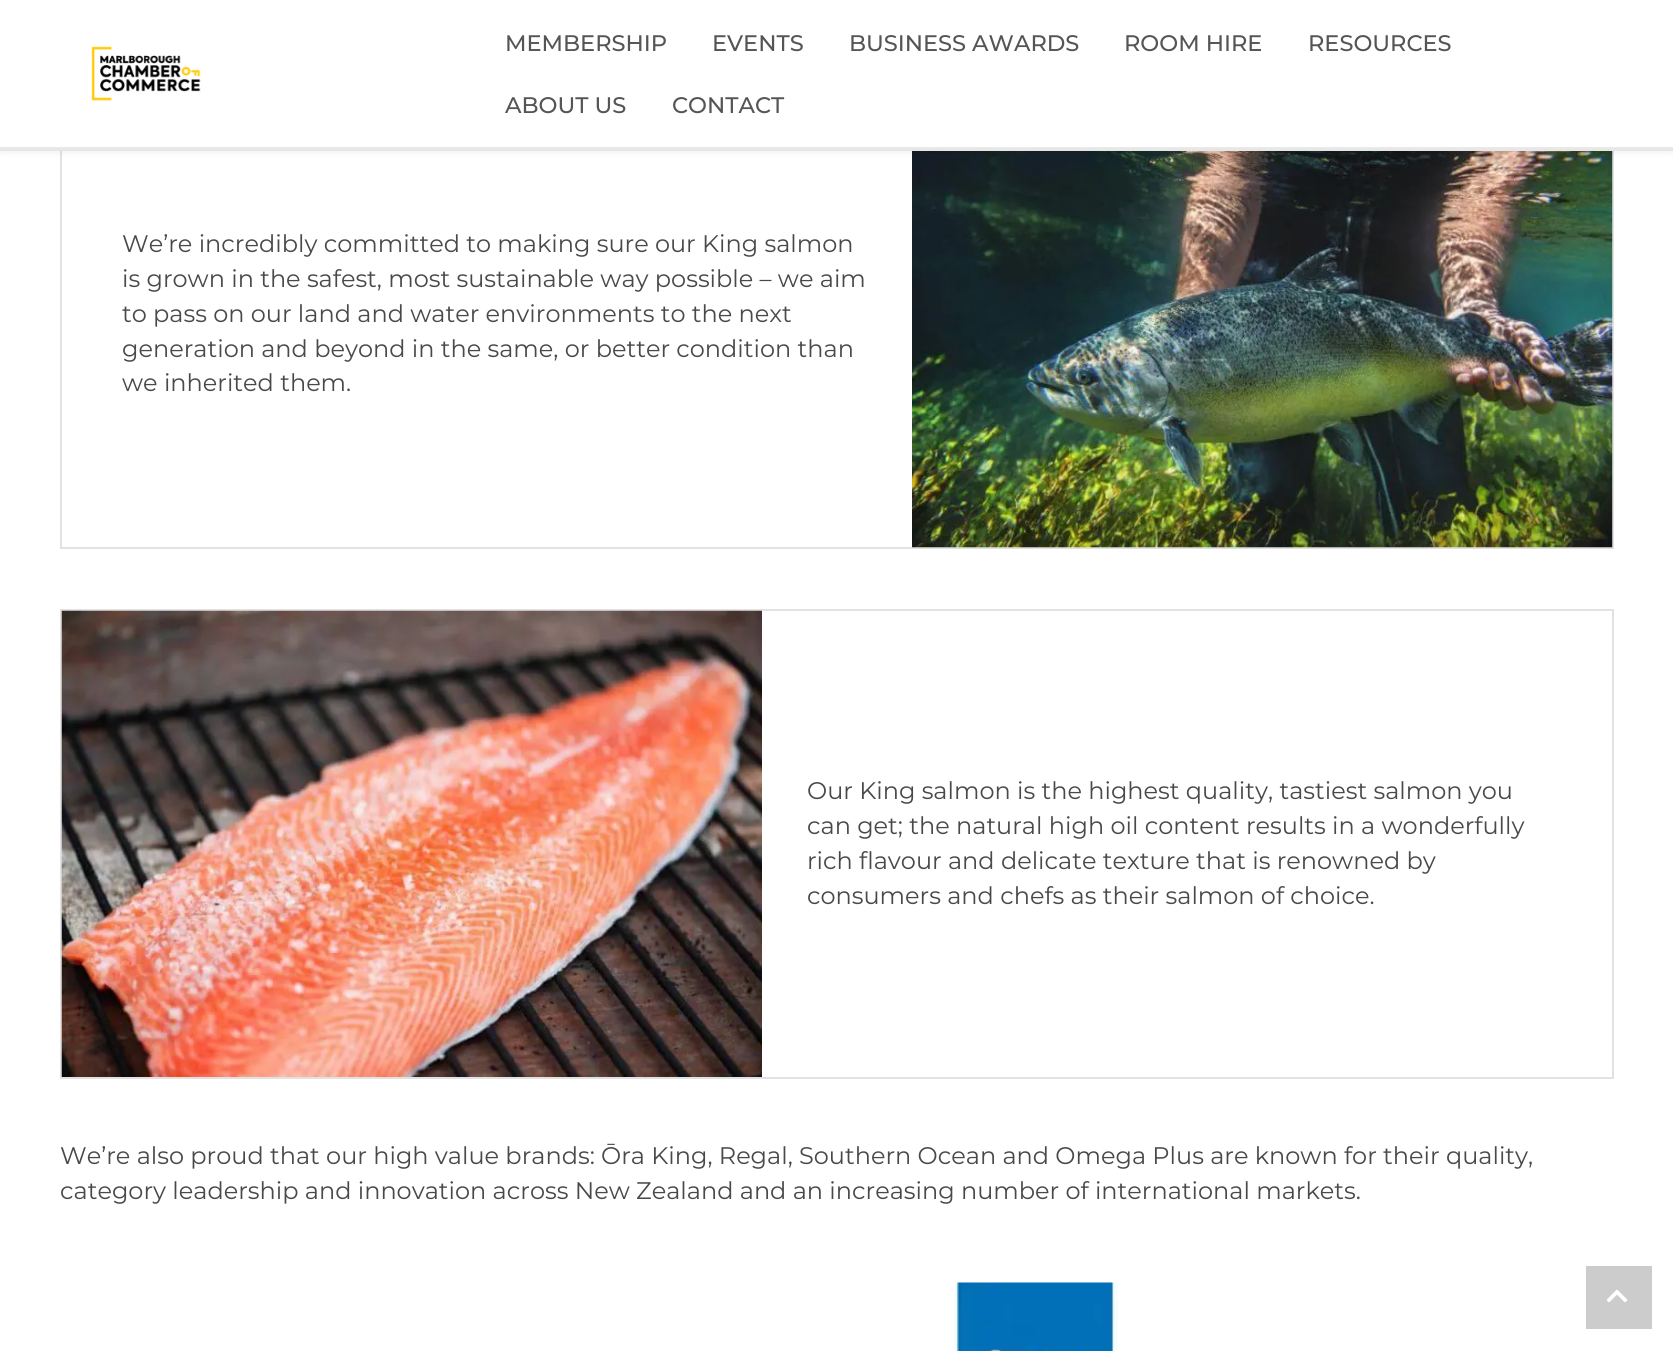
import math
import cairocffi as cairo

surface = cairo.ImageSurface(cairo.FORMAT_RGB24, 1673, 1351)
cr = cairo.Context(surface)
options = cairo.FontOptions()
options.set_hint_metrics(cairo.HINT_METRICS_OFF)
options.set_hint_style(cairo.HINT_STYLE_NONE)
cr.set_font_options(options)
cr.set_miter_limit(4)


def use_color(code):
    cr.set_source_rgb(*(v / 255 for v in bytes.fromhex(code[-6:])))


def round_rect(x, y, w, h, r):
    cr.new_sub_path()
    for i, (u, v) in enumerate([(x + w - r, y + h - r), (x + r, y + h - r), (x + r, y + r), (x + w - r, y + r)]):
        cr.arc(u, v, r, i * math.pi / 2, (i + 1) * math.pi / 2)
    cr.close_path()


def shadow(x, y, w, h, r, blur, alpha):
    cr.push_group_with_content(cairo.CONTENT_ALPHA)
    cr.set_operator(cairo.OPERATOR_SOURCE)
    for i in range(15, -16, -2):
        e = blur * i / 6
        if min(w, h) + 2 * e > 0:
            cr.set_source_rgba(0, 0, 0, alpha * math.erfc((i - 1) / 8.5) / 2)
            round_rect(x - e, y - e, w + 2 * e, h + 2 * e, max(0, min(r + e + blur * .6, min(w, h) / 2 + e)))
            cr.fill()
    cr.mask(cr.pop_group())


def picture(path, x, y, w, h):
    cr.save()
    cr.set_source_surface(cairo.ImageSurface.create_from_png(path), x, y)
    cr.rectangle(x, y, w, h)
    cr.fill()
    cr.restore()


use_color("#ffffff")
cr.paint()
cr.rectangle(61, 81, 1552, 467)
use_color("#e2e2e2")
cr.stroke()
picture("img2.png", 912, 151, 701, 397)
use_color("#000000")
shadow(0, 0, 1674, 150, 0, 5, 0.1)
use_color("#ffffff")
cr.rectangle(0, 0, 1673, 147)
cr.fill()
use_color("#e6e6e6")
cr.rectangle(0, 149, 1673, 2)
cr.fill()
use_color("#e9e9e9")
cr.rectangle(0, 147, 1673, 2)
cr.fill()
picture("img1.png", 91, 46, 110, 55)
cr.select_font_face("Montserrat Medium")
cr.set_font_size(22.5)
use_color("#555555")
cr.move_to(505, 51)
cr.show_text("MEMBERSHIP")
cr.move_to(712, 51)
cr.show_text("EVENTS")
cr.move_to(849, 51)
cr.show_text("BUSINESS AWARDS")
cr.move_to(1124, 51)
cr.show_text("ROOM HIRE")
cr.move_to(1308, 51)
cr.show_text("RESOURCES")
cr.move_to(505, 113)
cr.show_text("ABOUT US")
cr.move_to(672, 113)
cr.show_text("CONTACT")
cr.select_font_face("Montserrat")
cr.set_font_size(24)
use_color("#494949")
cr.move_to(122, 252)
cr.show_text("We’re incredibly committed to making sure our King salmon")
cr.move_to(122, 287)
cr.show_text("is grown in the safest, most sustainable way possible – we aim")
cr.move_to(122, 322)
cr.show_text("to pass on our land and water environments to the next")
cr.move_to(122, 357)
cr.show_text("generation and beyond in the same, or better condition than")
cr.move_to(122, 391)
cr.show_text("we inherited them.")
cr.rectangle(61, 610, 1552, 468)
use_color("#e2e2e2")
cr.stroke()
picture("img3.png", 61, 610, 701, 467)
use_color("#494949")
cr.move_to(807, 799)
cr.show_text("Our King salmon is the highest quality, tastiest salmon you")
cr.move_to(807, 834)
cr.show_text("can get; the natural high oil content results in a wonderfully")
cr.move_to(807, 869)
cr.show_text("rich flavour and delicate texture that is renowned by")
cr.move_to(807, 904)
cr.show_text("consumers and chefs as their salmon of choice.")
cr.move_to(60, 1164)
cr.show_text("We’re also proud that our high value brands: Ōra King, Regal, Southern Ocean and Omega Plus are known for their quality,")
cr.move_to(60, 1199)
cr.show_text("category leadership and innovation across New Zealand and an increasing number of international markets.")
picture("img4.png", 954, 1282, 164, 69)
use_color("#cccccc")
cr.rectangle(1586, 1266, 66, 63)
cr.fill()
picture("img5.png", 1606, 1289, 22, 14)
surface.write_to_png("result.png")
